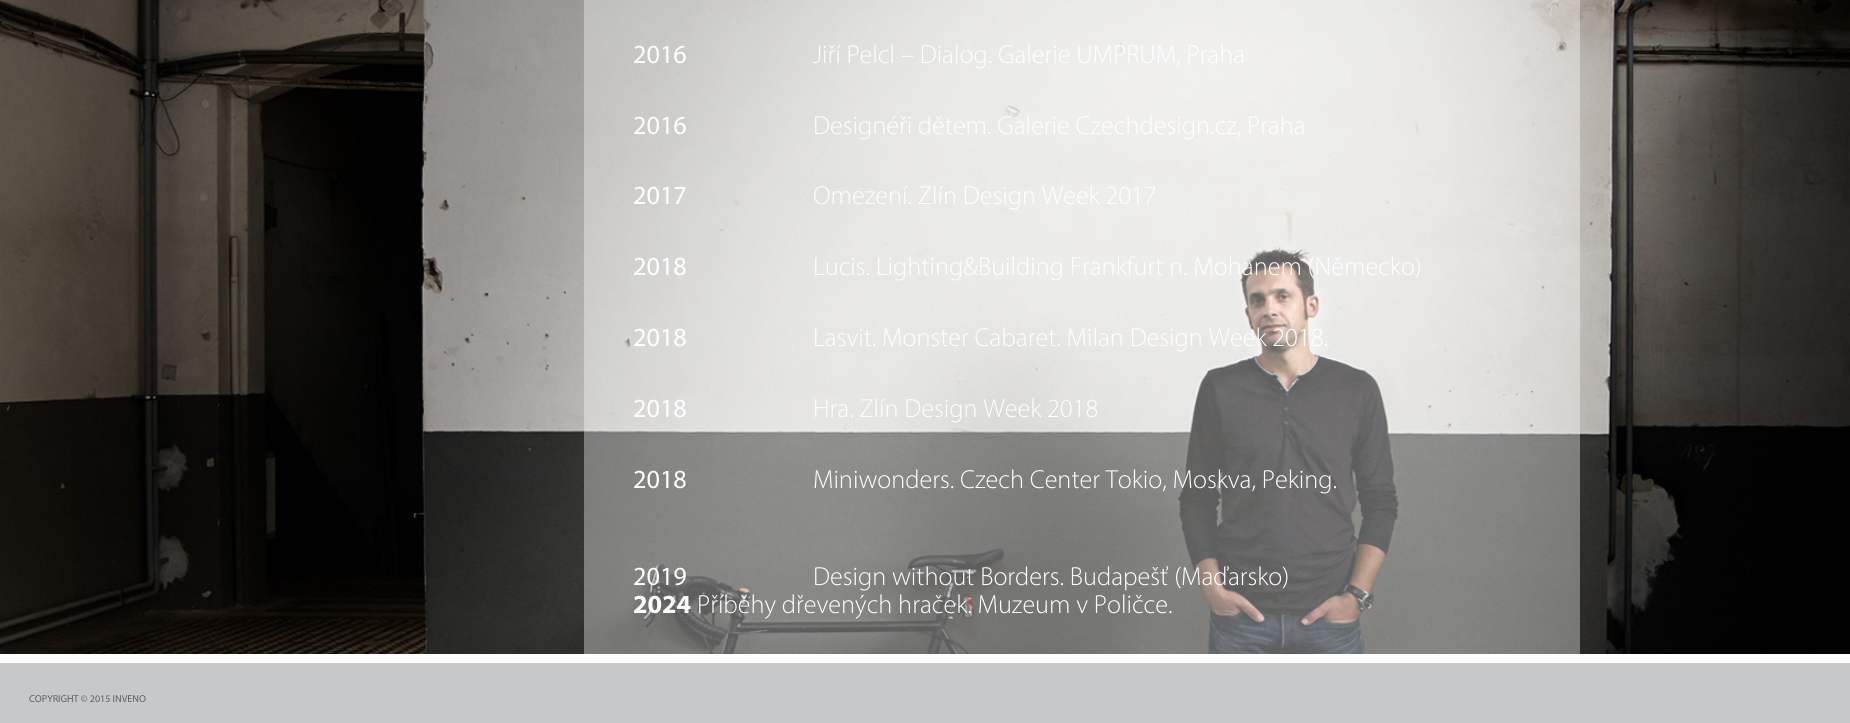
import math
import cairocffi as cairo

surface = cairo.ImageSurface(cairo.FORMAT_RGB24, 1850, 723)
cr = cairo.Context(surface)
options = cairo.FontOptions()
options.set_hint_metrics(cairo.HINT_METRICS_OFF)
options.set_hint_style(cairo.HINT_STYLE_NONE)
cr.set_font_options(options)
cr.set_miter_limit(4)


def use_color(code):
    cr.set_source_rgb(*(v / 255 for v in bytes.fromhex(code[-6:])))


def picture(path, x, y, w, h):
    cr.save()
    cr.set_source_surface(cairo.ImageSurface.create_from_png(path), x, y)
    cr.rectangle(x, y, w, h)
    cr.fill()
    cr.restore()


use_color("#ffffff")
cr.paint()
picture("img1.png", 0, 0, 1850, 654)
cr.set_source_rgba(1, 1, 1, 0.36)
cr.rectangle(584, 0, 996, 654)
cr.fill()
cr.select_font_face("Myriad")
cr.set_font_size(26.2)
use_color("#ffffff")
cr.move_to(633, 63)
cr.show_text("2016")
cr.move_to(633, 134)
cr.show_text("2016")
cr.move_to(633, 204)
cr.show_text("2017")
cr.move_to(633, 275)
cr.show_text("2018")
cr.move_to(633, 346)
cr.show_text("2018")
cr.move_to(633, 417)
cr.show_text("2018")
cr.move_to(633, 488)
cr.show_text("2018")
cr.select_font_face("Myriad Light")
cr.move_to(813, 63)
cr.show_text("Jiří Pelcl – Dialog. Galerie UMPRUM, Praha")
cr.move_to(813, 134)
cr.show_text("Designéři dětem. Galerie Czechdesign.cz, Praha")
cr.move_to(813, 204)
cr.show_text("Omezení. Zlín Design Week 2017")
cr.move_to(813, 275)
cr.show_text("Lucis. Lighting&Building Frankfurt n. Mohanem (Německo)")
cr.move_to(813, 346)
cr.show_text("Lasvit. Monster Cabaret. Milan Design Week 2018.")
cr.move_to(813, 417)
cr.show_text("Hra. Zlín Design Week 2018")
cr.move_to(813, 488)
cr.show_text("Miniwonders. Czech Center Tokio, Moskva, Peking.")
cr.select_font_face("Myriad")
cr.move_to(633, 585)
cr.show_text("2019")
cr.select_font_face("Myriad Light")
cr.move_to(813, 585)
cr.show_text("Design without Borders. Budapešť (Maďarsko)")
cr.select_font_face("Myriad", cairo.FONT_SLANT_NORMAL, cairo.FONT_WEIGHT_BOLD)
cr.move_to(633, 613)
cr.show_text("2024")
cr.select_font_face("Myriad Light")
cr.move_to(697, 613)
cr.show_text("Příběhy dřevených hraček. Muzeum v Poličce.")
use_color("#c6c8ca")
cr.rectangle(0, 663, 1850, 60)
cr.fill()
cr.select_font_face("Myriad")
cr.set_font_size(10.1)
use_color("#5f5f61")
cr.move_to(29, 702)
cr.show_text("COPYRIGHT © 2015 INVENO")
surface.write_to_png("result.png")
